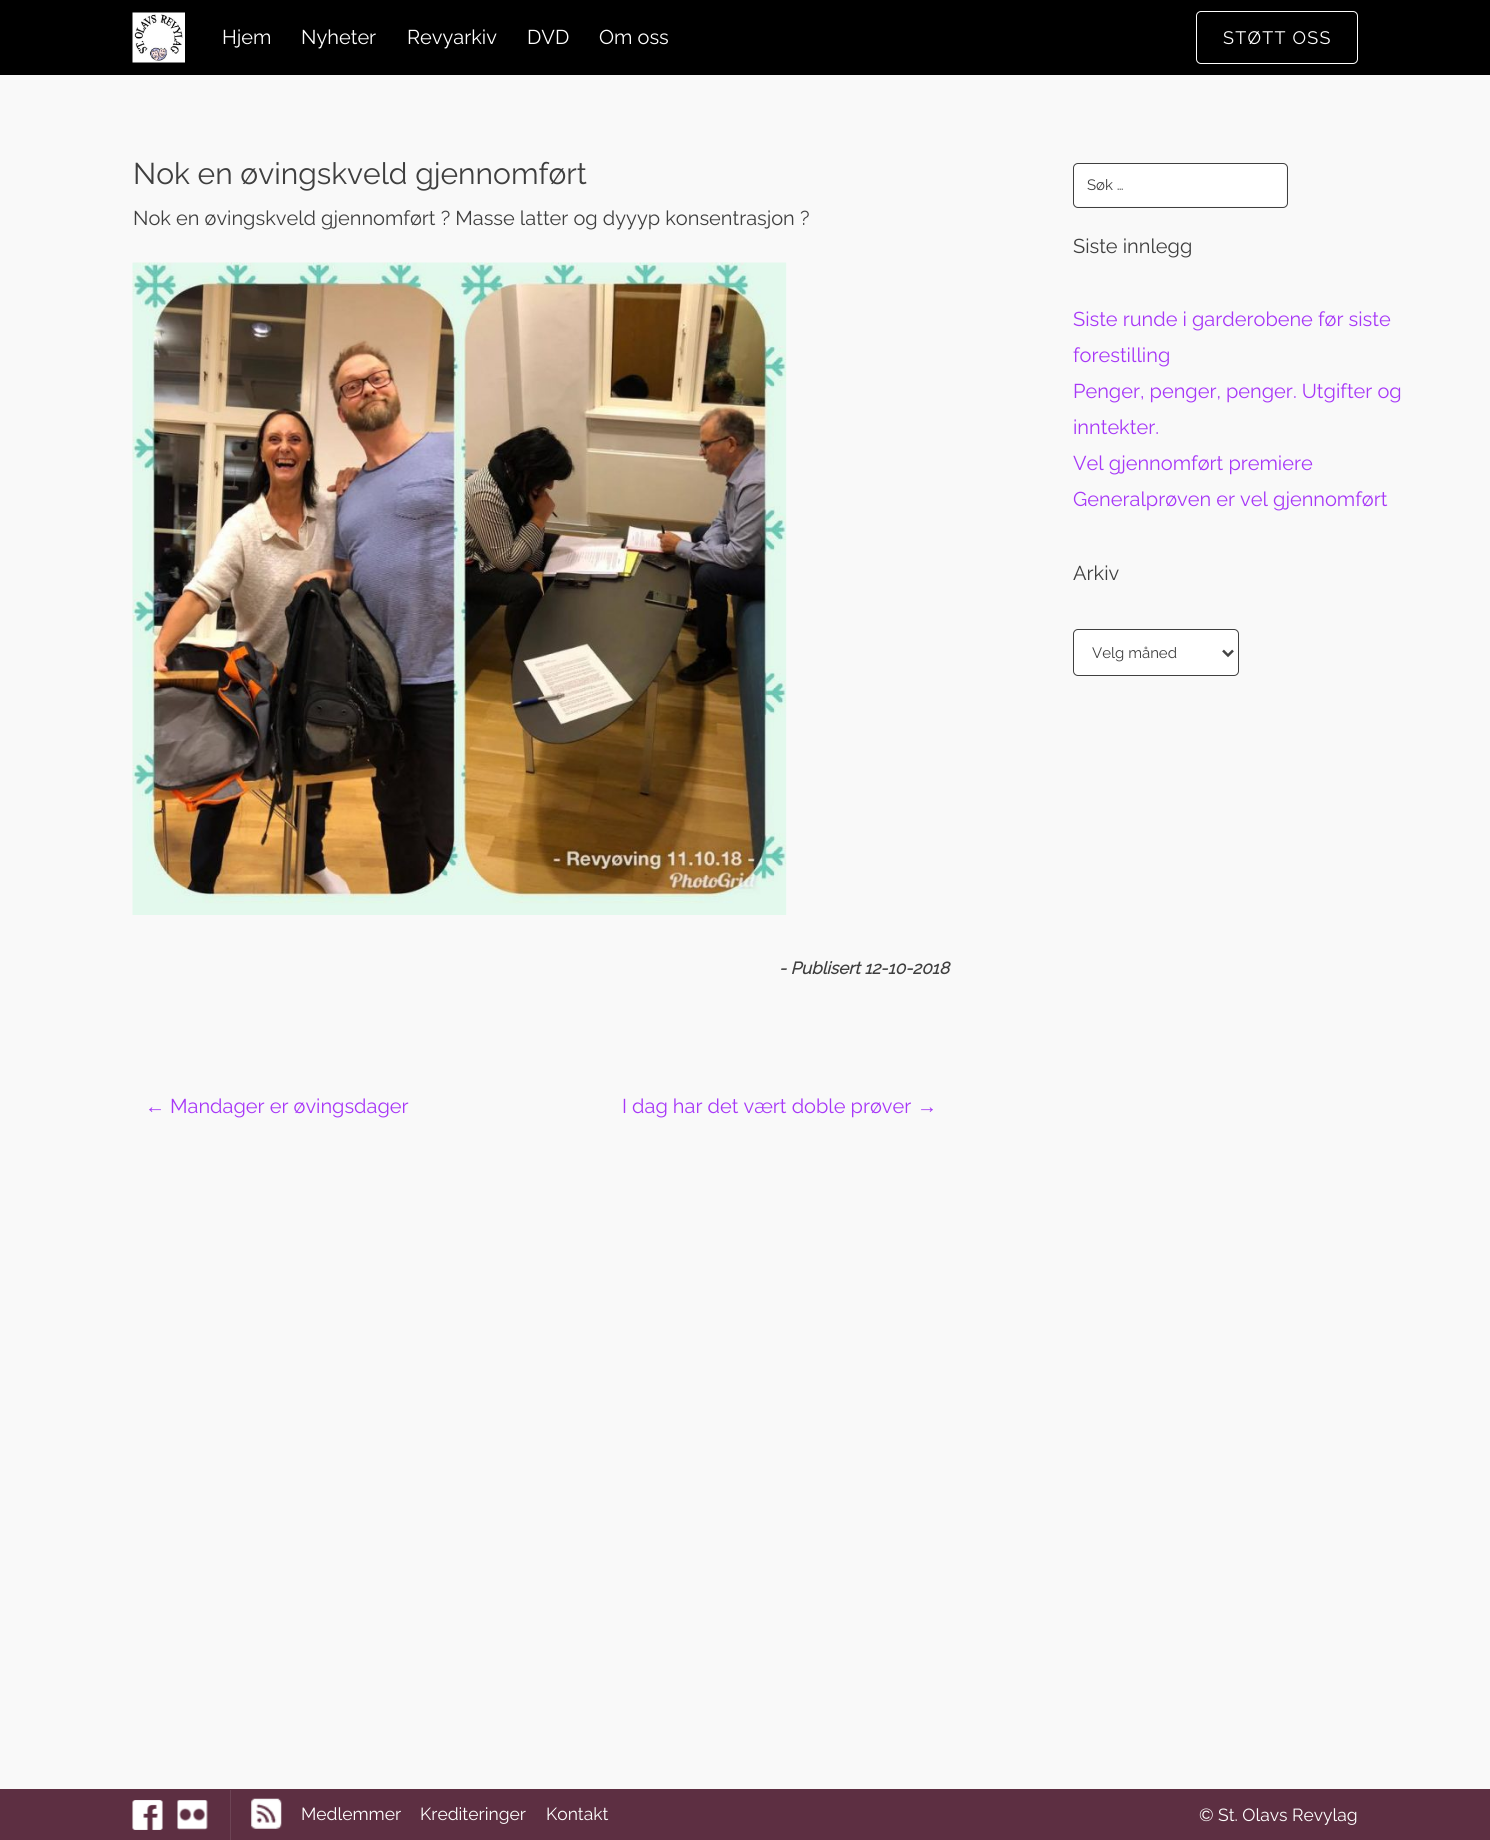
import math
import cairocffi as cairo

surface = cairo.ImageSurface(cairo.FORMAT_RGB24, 1490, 1840)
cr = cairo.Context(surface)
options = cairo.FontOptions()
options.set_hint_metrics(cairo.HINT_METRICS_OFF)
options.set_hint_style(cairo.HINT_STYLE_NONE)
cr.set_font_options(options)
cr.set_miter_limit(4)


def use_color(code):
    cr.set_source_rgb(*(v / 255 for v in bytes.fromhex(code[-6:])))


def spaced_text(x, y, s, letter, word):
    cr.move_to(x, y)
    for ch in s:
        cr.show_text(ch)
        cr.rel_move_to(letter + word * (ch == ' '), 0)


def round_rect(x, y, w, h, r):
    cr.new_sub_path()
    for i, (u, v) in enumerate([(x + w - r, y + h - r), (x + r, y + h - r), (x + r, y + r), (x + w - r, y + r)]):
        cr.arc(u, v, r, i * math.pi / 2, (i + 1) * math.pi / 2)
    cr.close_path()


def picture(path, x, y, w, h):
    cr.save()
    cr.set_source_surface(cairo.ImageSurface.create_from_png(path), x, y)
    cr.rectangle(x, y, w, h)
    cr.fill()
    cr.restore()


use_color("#f9f9f9")
cr.paint()
use_color("#000000")
cr.rectangle(0, 0, 1490, 75)
cr.fill()
picture("img1.png", 132, 12, 53, 51)
cr.select_font_face("Raleway Thin")
cr.set_font_size(20)
use_color("#ffffff")
cr.move_to(222, 44)
cr.show_text("Hjem")
cr.move_to(301, 44)
cr.show_text("Nyheter")
cr.move_to(407, 44)
cr.show_text("Revyarkiv")
cr.move_to(527, 44)
cr.show_text("DVD")
cr.move_to(599, 44)
cr.show_text("Om oss")
round_rect(1196.5, 11.5, 161, 52, 4.5)
cr.set_line_width(1)
cr.stroke()
cr.set_font_size(18)
spaced_text(1223, 44, "STØTT OSS", 1.25, 0)
cr.set_font_size(30)
use_color("#3f3f3f")
cr.move_to(133, 184)
cr.show_text("Nok en øvingskveld gjennomført")
cr.set_font_size(20)
cr.move_to(133, 225)
cr.show_text("Nok en øvingskveld gjennomført ? Masse latter og dyyyp konsentrasjon ?")
picture("img2.png", 132, 262, 655, 653)
cr.select_font_face("Raleway", cairo.FONT_SLANT_ITALIC, cairo.FONT_WEIGHT_BOLD)
cr.set_font_size(17)
cr.move_to(779, 974)
cr.show_text("- Publisert 12-10-2018")
cr.select_font_face("Liberation Sans")
cr.set_font_size(20)
use_color("#a738f7")
cr.move_to(145, 1113)
cr.show_text("←")
cr.select_font_face("Raleway Thin")
cr.move_to(170, 1113)
cr.show_text("Mandager er øvingsdager")
cr.move_to(622, 1113)
cr.show_text("I dag har det vært doble prøver")
cr.select_font_face("Liberation Sans")
cr.move_to(917, 1113)
cr.show_text("→")
use_color("#ffffff")
round_rect(1074, 164, 212, 42, 4)
cr.fill()
round_rect(1073.5, 163.5, 214, 44, 4.5)
use_color("#3f3f3f")
cr.stroke()
cr.select_font_face("Raleway Thin")
cr.set_font_size(15)
cr.move_to(1087, 190)
cr.show_text("Søk …")
cr.set_font_size(20)
cr.move_to(1073, 253)
cr.show_text("Siste innlegg")
use_color("#a738f7")
cr.move_to(1073, 326)
cr.show_text("Siste runde i garderobene før siste")
cr.move_to(1073, 362)
cr.show_text("forestilling")
cr.move_to(1073, 398)
cr.show_text("Penger, penger, penger. Utgifter og")
cr.move_to(1073, 434)
cr.show_text("inntekter.")
cr.move_to(1073, 470)
cr.show_text("Vel gjennomført premiere")
cr.move_to(1073, 506)
cr.show_text("Generalprøven er vel gjennomført")
use_color("#3f3f3f")
cr.move_to(1073, 580)
cr.show_text("Arkiv")
use_color("#ffffff")
round_rect(1073.5, 629.5, 165, 46, 4.5)
cr.fill_preserve()
use_color("#3f3f3f")
cr.stroke()
cr.new_path()
cr.move_to(1223, 650.5)
cr.line_to(1228, 655.5)
cr.line_to(1233, 650.5)
use_color("#444444")
cr.set_line_width(2.5)
cr.stroke()
cr.set_font_size(15)
use_color("#3f3f3f")
cr.move_to(1092, 658)
cr.show_text("Velg måned")
use_color("#5d2f42")
cr.rectangle(0, 1789, 1490, 51)
cr.fill()
use_color("#6d4455")
cr.rectangle(230, 1790, 1, 50)
cr.fill()
picture("img3.png", 132, 1800, 31, 30)
picture("img4.png", 177, 1800, 31, 30)
picture("img5.png", 251, 1798, 31, 31)
cr.set_font_size(17.5)
use_color("#ffffff")
cr.move_to(301, 1820)
cr.show_text("Medlemmer")
cr.move_to(420, 1820)
cr.show_text("Krediteringer")
cr.move_to(546, 1820)
cr.show_text("Kontakt")
cr.move_to(1199, 1821)
cr.show_text("© St. Olavs Revylag")
surface.write_to_png("result.png")
